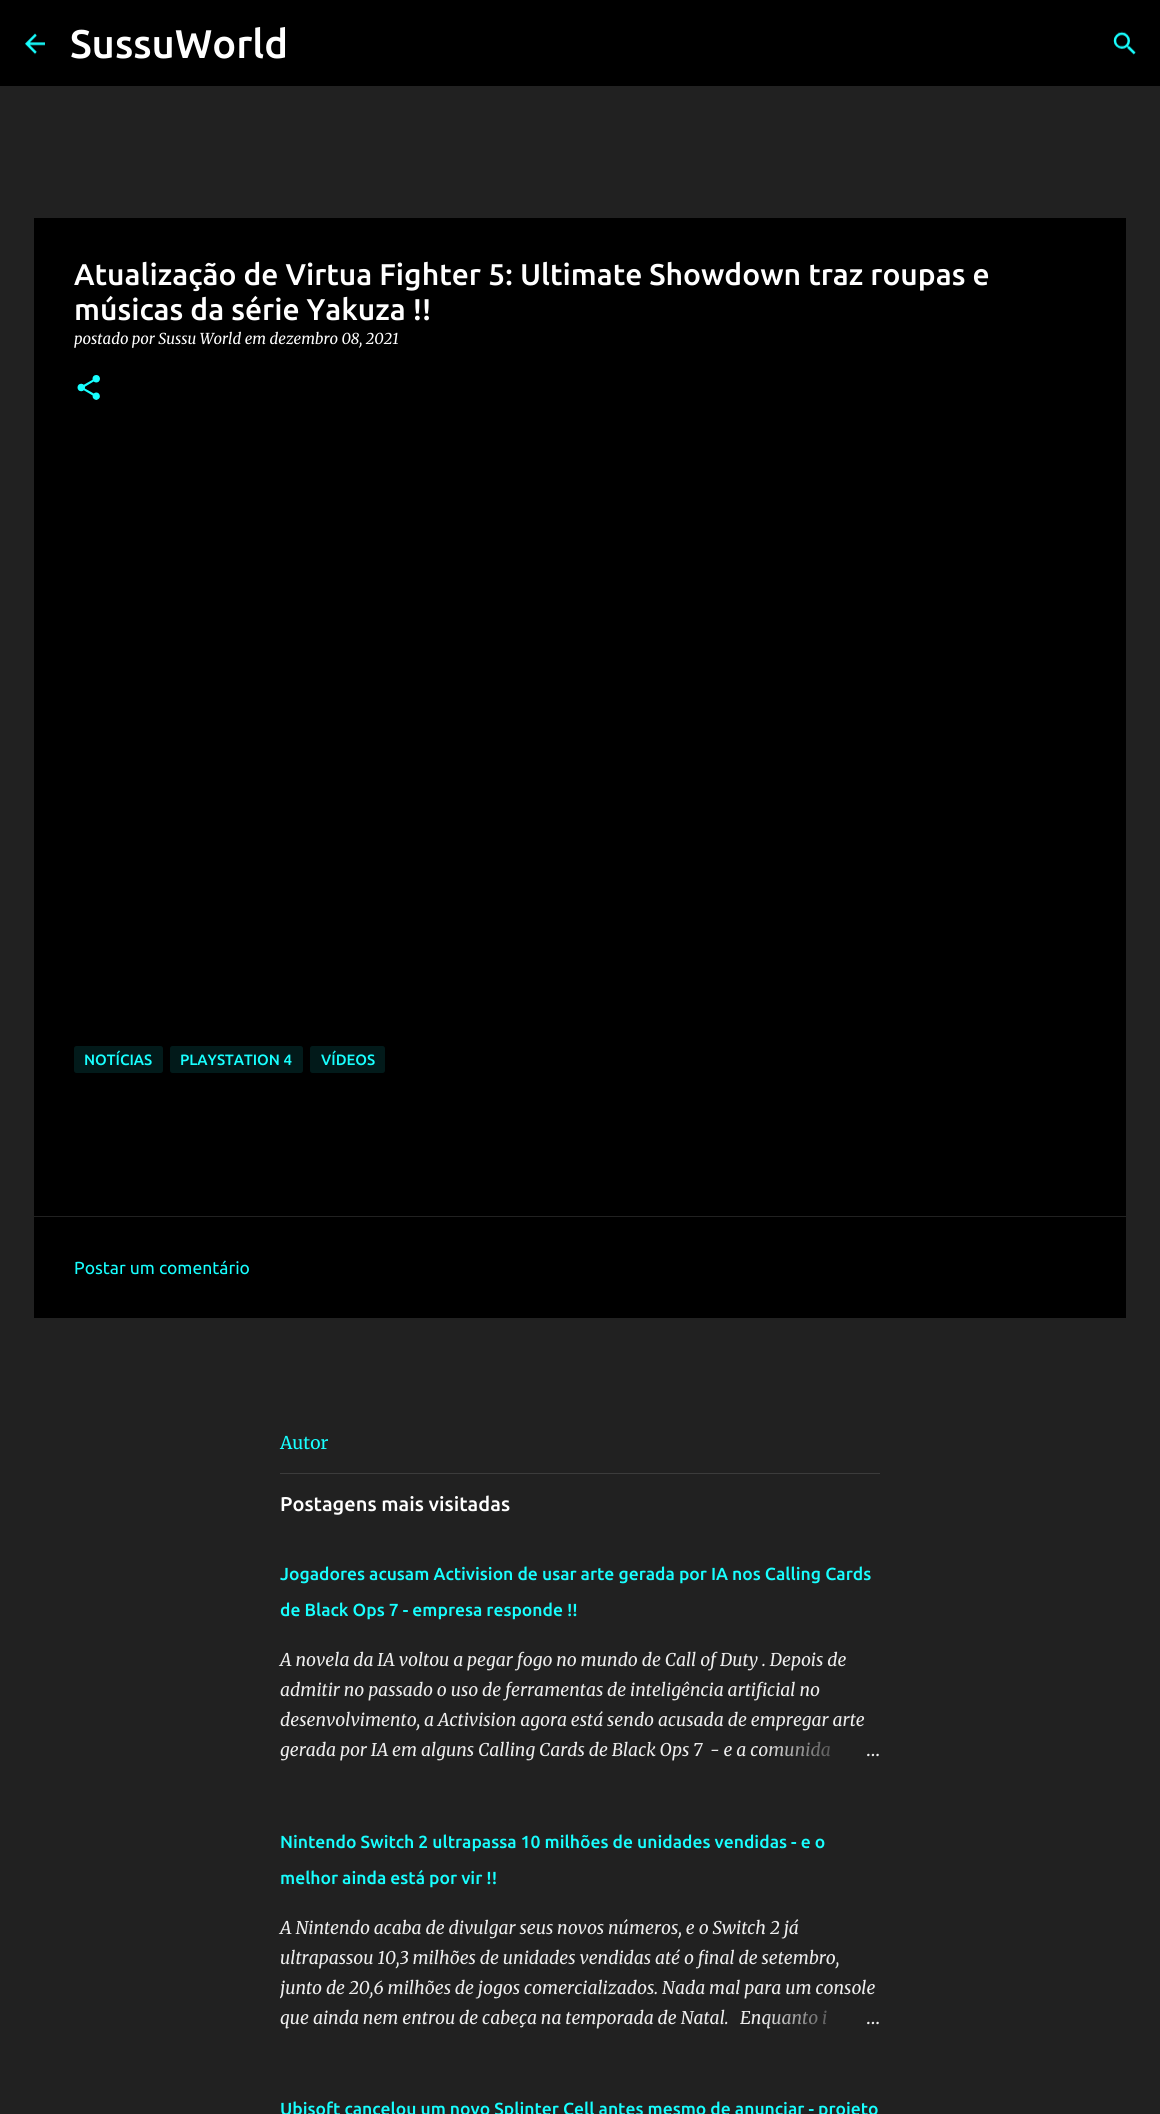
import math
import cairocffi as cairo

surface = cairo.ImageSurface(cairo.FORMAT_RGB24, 1160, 2114)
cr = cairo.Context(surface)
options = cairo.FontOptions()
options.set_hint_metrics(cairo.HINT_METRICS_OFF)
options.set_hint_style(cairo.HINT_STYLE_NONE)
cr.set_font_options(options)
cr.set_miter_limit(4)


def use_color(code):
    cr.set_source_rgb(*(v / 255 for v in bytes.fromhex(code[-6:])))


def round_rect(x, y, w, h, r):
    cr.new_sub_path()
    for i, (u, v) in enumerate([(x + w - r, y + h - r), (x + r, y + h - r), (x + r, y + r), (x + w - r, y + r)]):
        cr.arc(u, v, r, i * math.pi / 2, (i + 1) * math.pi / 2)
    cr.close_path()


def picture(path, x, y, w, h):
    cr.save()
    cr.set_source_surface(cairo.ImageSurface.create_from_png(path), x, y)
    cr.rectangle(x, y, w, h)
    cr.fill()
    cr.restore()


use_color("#212121")
cr.paint()
use_color("#000000")
cr.rectangle(0, 0, 1160, 86)
cr.fill()
picture("img1.png", 25, 33, 20, 22)
cr.select_font_face("Ubuntu Medium")
cr.set_font_size(40)
use_color("#ffffff")
cr.move_to(70, 58)
cr.show_text("SussuWorld")
picture("img2.png", 1113, 31, 23, 24)
use_color("#000000")
cr.rectangle(34, 218, 1092, 998)
cr.fill()
cr.set_font_size(30)
use_color("#ffffff")
cr.move_to(74, 285)
cr.show_text("Atualização de Virtua Fighter 5: Ultimate Showdown traz roupas e")
cr.move_to(74, 320)
cr.show_text("músicas da série Yakuza !!")
cr.select_font_face("Merriweather", cairo.FONT_SLANT_ITALIC)
cr.set_font_size(15)
cr.move_to(74, 344)
cr.show_text("postado por Sussu World em dezembro 08, 2021")
picture("img3.png", 77, 375, 23, 25)
use_color("#021a1a")
round_rect(74, 1046, 89, 27, 2.5)
cr.fill()
cr.select_font_face("Ubuntu Medium")
use_color("#18ffff")
cr.move_to(84, 1065)
cr.show_text("NOTÍCIAS")
use_color("#021a1a")
round_rect(170, 1046, 133, 27, 2.5)
cr.fill()
use_color("#18ffff")
cr.move_to(180, 1065)
cr.show_text("PLAYSTATION 4")
use_color("#021a1a")
round_rect(310, 1046, 75, 27, 2.5)
cr.fill()
use_color("#18ffff")
cr.move_to(321, 1065)
cr.show_text("VÍDEOS")
use_color("#000000")
cr.rectangle(34, 1217, 1092, 101)
cr.fill()
cr.select_font_face("Ubuntu")
cr.set_font_size(17.5)
use_color("#18ffff")
cr.move_to(74, 1274)
cr.show_text("Postar um comentário")
cr.select_font_face("Merriweather")
cr.move_to(280, 1449)
cr.show_text("Autor")
use_color("#3c3c3c")
cr.rectangle(280, 1473, 600, 1)
cr.fill()
cr.select_font_face("Ubuntu Medium")
cr.set_font_size(20)
use_color("#ffffff")
cr.move_to(280, 1511)
cr.show_text("Postagens mais visitadas")
cr.set_font_size(17.5)
use_color("#18ffff")
cr.move_to(280, 1580)
cr.show_text("Jogadores acusam Activision de usar arte gerada por IA nos Calling Cards")
cr.move_to(280, 1616)
cr.show_text("de Black Ops 7 - empresa responde !!")
cr.select_font_face("Merriweather", cairo.FONT_SLANT_ITALIC)
use_color("#eeeeee")
cr.move_to(280, 1666)
cr.show_text("A novela da IA voltou a pegar fogo no mundo de Call of Duty . Depois de")
cr.move_to(280, 1696)
cr.show_text("admitir no passado o uso de ferramentas de inteligência artificial no")
cr.move_to(280, 1726)
cr.show_text("desenvolvimento, a Activision agora está sendo acusada de empregar arte")
cr.move_to(280, 1756)
cr.show_text("gerada por IA em alguns Calling Cards de Black Ops 7  - e a comunida")
gradient = cairo.LinearGradient(880, 1750, 760, 1750)
gradient.add_color_stop_rgba(0, 0.129, 0.129, 0.129, 1)
gradient.add_color_stop_rgba(0.2, 0.129, 0.129, 0.129, 1)
gradient.add_color_stop_rgba(1, 0.129, 0.129, 0.129, 0)
cr.set_source(gradient)
cr.rectangle(762, 1741, 68, 16)
cr.fill()
cr.select_font_face("Merriweather")
use_color("#eeeeee")
cr.move_to(866, 1756)
cr.show_text("…")
cr.select_font_face("Ubuntu Medium")
use_color("#18ffff")
cr.move_to(280, 1848)
cr.show_text("Nintendo Switch 2 ultrapassa 10 milhões de unidades vendidas - e o")
cr.move_to(280, 1884)
cr.show_text("melhor ainda está por vir !!")
cr.select_font_face("Merriweather", cairo.FONT_SLANT_ITALIC)
use_color("#eeeeee")
cr.move_to(280, 1934)
cr.show_text("A Nintendo acaba de divulgar seus novos números, e o Switch 2 já")
cr.move_to(280, 1964)
cr.show_text("ultrapassou 10,3 milhões de unidades vendidas até o final de setembro,")
cr.save()
cr.rectangle(280, 1913, 600, 120)
cr.clip()
cr.move_to(280, 1994)
cr.show_text("junto de 20,6 milhões de jogos")
cr.restore()
cr.move_to(524, 1994)
cr.show_text("comercializados. Nada mal para um console")
cr.move_to(280, 2024)
cr.show_text("que ainda nem entrou de cabeça na temporada de Natal.")
cr.move_to(740, 2024)
cr.show_text("Enquanto i")
gradient = cairo.LinearGradient(880, 2018, 760, 2018)
gradient.add_color_stop_rgba(0, 0.129, 0.129, 0.129, 1)
gradient.add_color_stop_rgba(0.2, 0.129, 0.129, 0.129, 1)
gradient.add_color_stop_rgba(1, 0.129, 0.129, 0.129, 0)
cr.set_source(gradient)
cr.rectangle(762, 2010, 65, 19)
cr.fill()
cr.select_font_face("Merriweather")
use_color("#eeeeee")
cr.move_to(866, 2024)
cr.show_text("…")
cr.select_font_face("Ubuntu Medium")
use_color("#18ffff")
cr.move_to(280, 2115)
cr.show_text("Ubisoft cancelou um novo Splinter Cell antes mesmo de anunciar - projeto")
surface.write_to_png("result.png")
